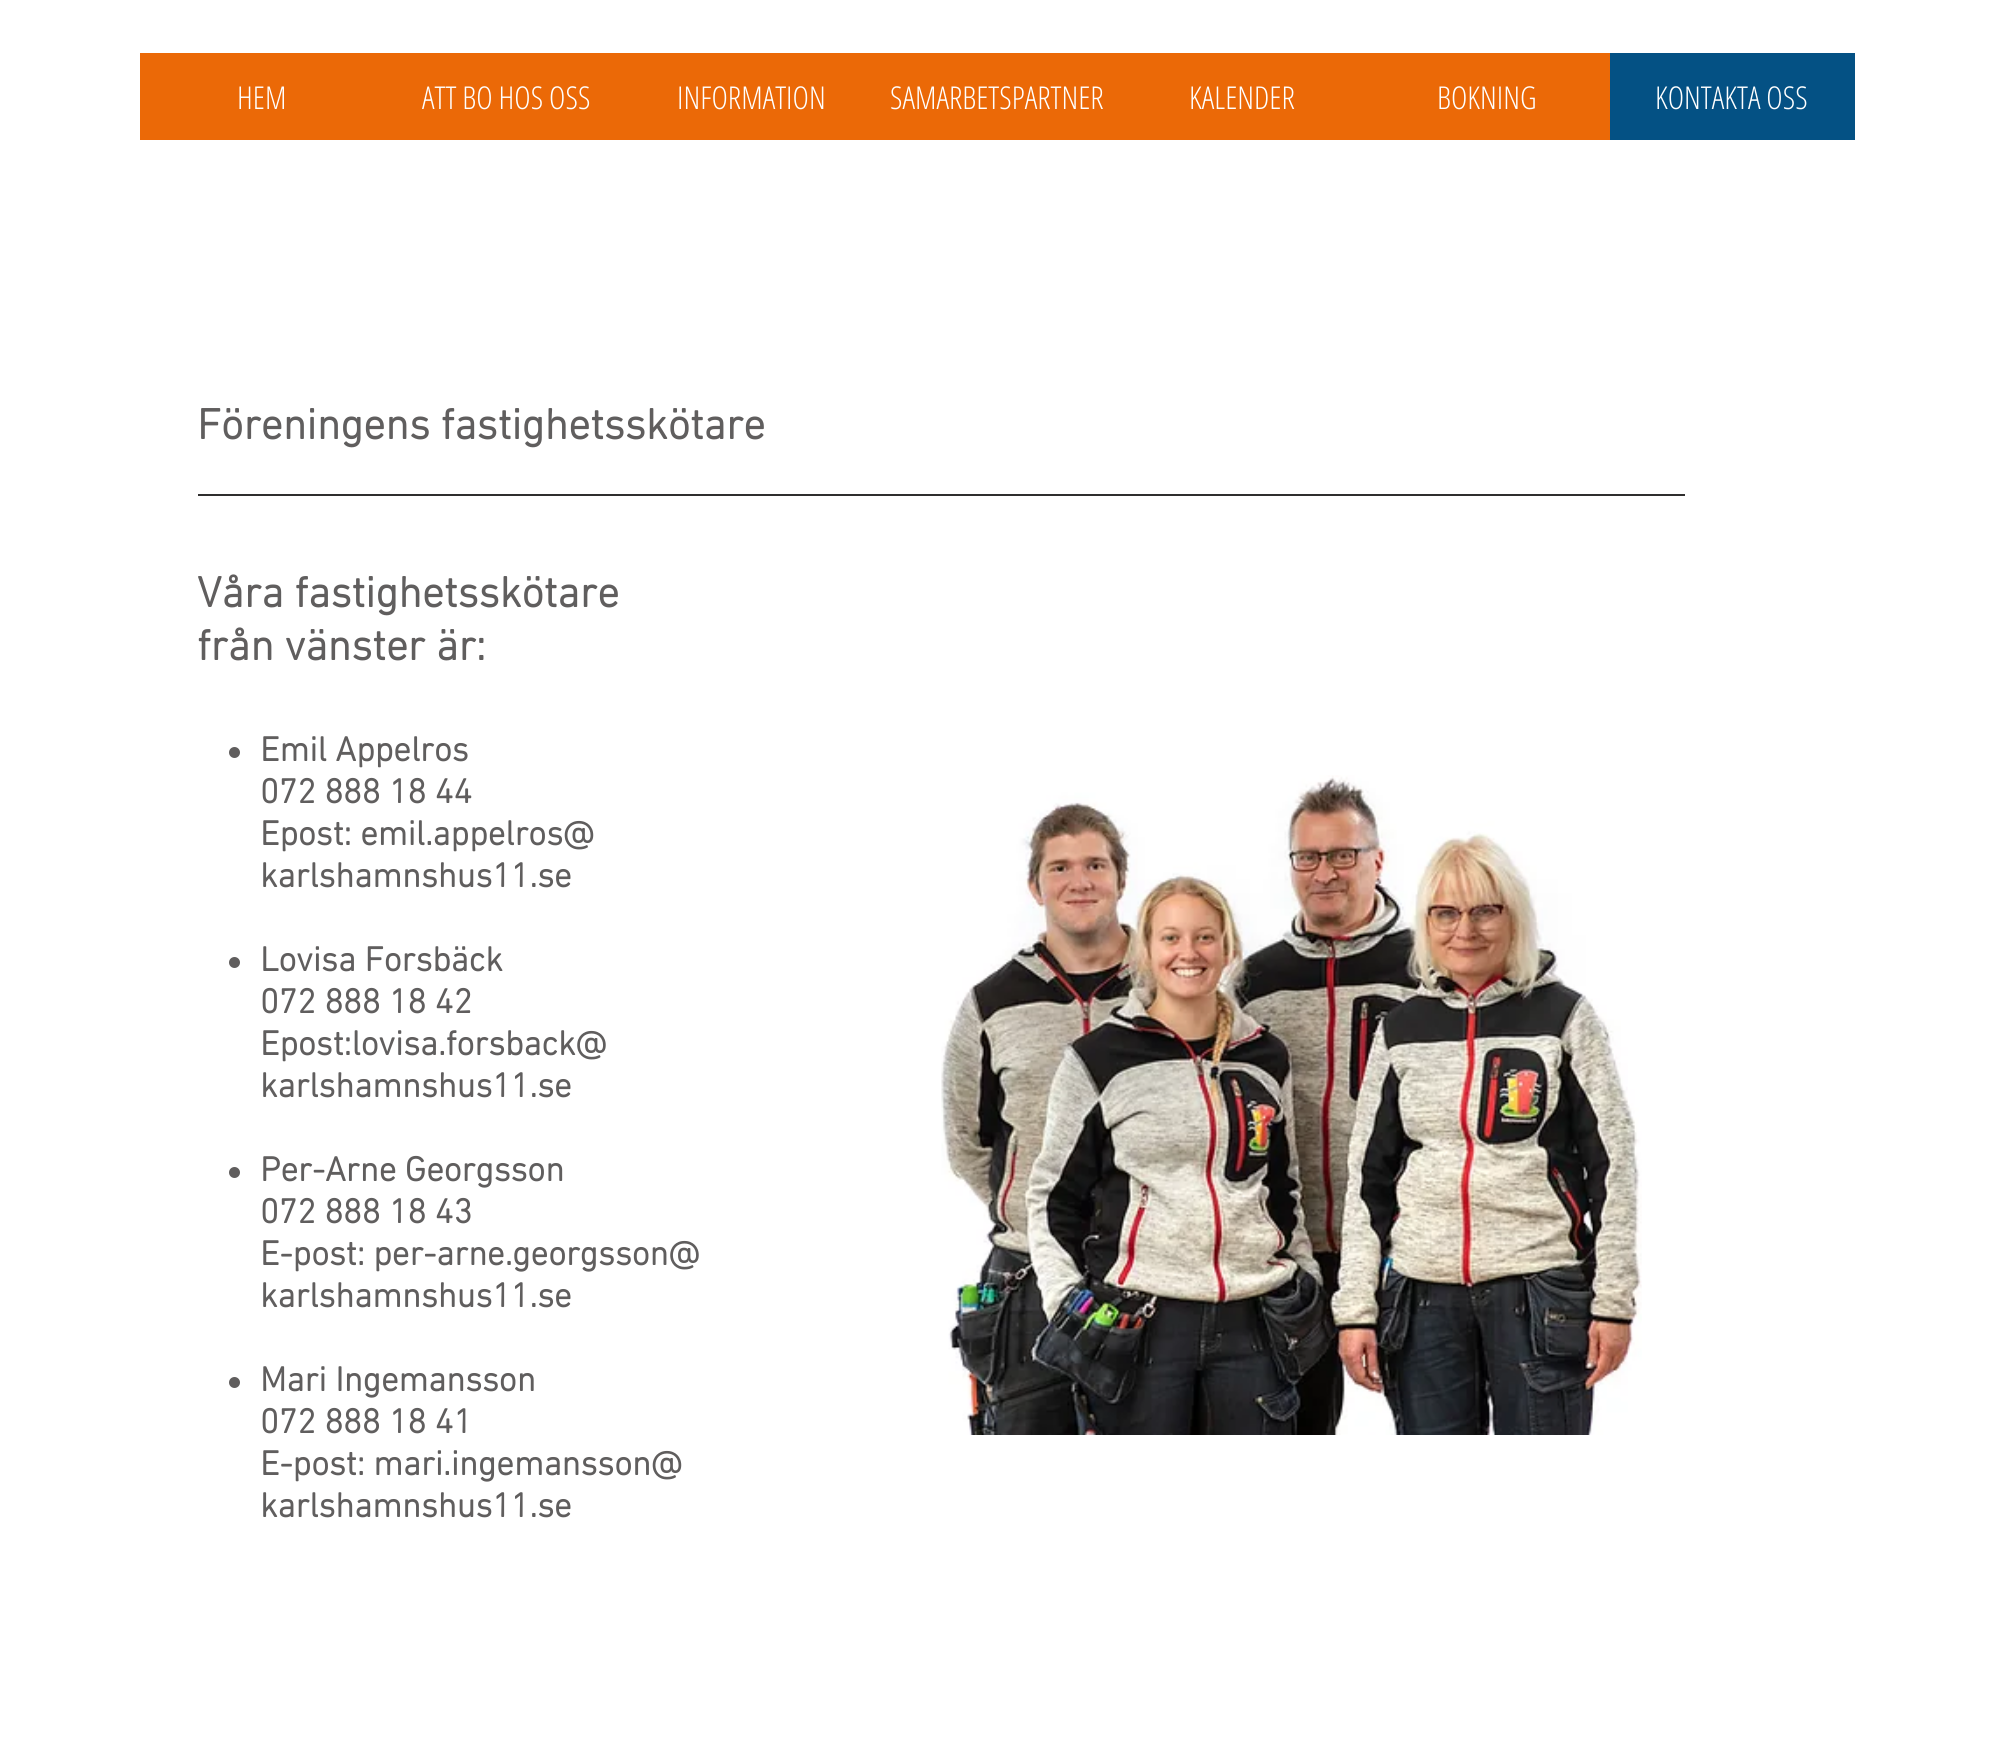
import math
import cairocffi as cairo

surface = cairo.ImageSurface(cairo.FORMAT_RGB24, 1992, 1748)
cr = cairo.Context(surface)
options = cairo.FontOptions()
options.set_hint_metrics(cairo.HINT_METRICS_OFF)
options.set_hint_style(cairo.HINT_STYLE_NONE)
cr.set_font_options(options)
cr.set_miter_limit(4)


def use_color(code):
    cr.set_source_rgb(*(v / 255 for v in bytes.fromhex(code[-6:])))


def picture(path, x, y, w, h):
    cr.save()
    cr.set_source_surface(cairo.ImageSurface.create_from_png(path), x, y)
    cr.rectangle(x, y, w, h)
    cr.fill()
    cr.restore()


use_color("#ffffff")
cr.paint()
use_color("#eb6907")
cr.rectangle(140, 53, 1470, 87)
cr.fill()
cr.select_font_face("Open Sans Condensed Light")
cr.set_font_size(31.5)
use_color("#ffffff")
cr.move_to(237, 109)
cr.show_text("HEM")
cr.move_to(422, 109)
cr.show_text("ATT BO HOS OSS")
cr.move_to(677, 109)
cr.show_text("INFORMATION")
cr.move_to(890, 109)
cr.show_text("SAMARBETSPARTNER")
cr.move_to(1189, 109)
cr.show_text("KALENDER")
cr.move_to(1437, 109)
cr.show_text("BOKNING")
use_color("#045184")
cr.rectangle(1610, 53, 245, 87)
cr.fill()
use_color("#ffffff")
cr.move_to(1655, 109)
cr.show_text("KONTAKTA OSS")
cr.select_font_face("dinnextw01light", cairo.FONT_SLANT_NORMAL, cairo.FONT_WEIGHT_BOLD)
cr.set_font_size(43.75)
use_color("#605e5e")
cr.move_to(197, 439)
cr.show_text("Föreningens fastighetsskötare")
use_color("#2f2e2e")
cr.rectangle(198, 494, 1487, 2)
cr.fill()
use_color("#605e5e")
cr.move_to(197, 607)
cr.show_text("Våra fastighetsskötare")
cr.move_to(197, 660)
cr.show_text("från vänster är:")
cr.new_path()
cr.arc(234.5, 752.5, 5.5, 0, 2 * math.pi)
cr.fill()
cr.set_font_size(35)
cr.move_to(260, 761)
cr.show_text("Emil Appelros")
cr.move_to(260, 803)
cr.show_text("072 888 18 44")
cr.move_to(260, 845)
cr.show_text("Epost: emil.appelros@")
cr.move_to(260, 887)
cr.show_text("karlshamnshus11.se")
cr.new_path()
cr.arc(234.5, 962.5, 5.5, 0, 2 * math.pi)
cr.fill()
cr.move_to(260, 971)
cr.show_text("Lovisa Forsbäck")
cr.move_to(260, 1013)
cr.show_text("072 888 18 42")
cr.move_to(260, 1055)
cr.show_text("Epost:lovisa.forsback@")
cr.move_to(260, 1097)
cr.show_text("karlshamnshus11.se")
cr.new_path()
cr.arc(234.5, 1172.5, 5.5, 0, 2 * math.pi)
cr.fill()
cr.move_to(260, 1181)
cr.show_text("Per-Arne Georgsson")
cr.move_to(260, 1223)
cr.show_text("072 888 18 43")
cr.move_to(260, 1265)
cr.show_text("E-post: per-arne.georgsson@")
cr.move_to(260, 1307)
cr.show_text("karlshamnshus11.se")
cr.new_path()
cr.arc(234.5, 1382.5, 5.5, 0, 2 * math.pi)
cr.fill()
cr.move_to(260, 1391)
cr.show_text("Mari Ingemansson")
cr.move_to(260, 1433)
cr.show_text("072 888 18 41")
cr.move_to(260, 1475)
cr.show_text("E-post: mari.ingemansson@")
cr.move_to(260, 1517)
cr.show_text("karlshamnshus11.se")
picture("img1.png", 941, 775, 701, 660)
surface.write_to_png("result.png")
